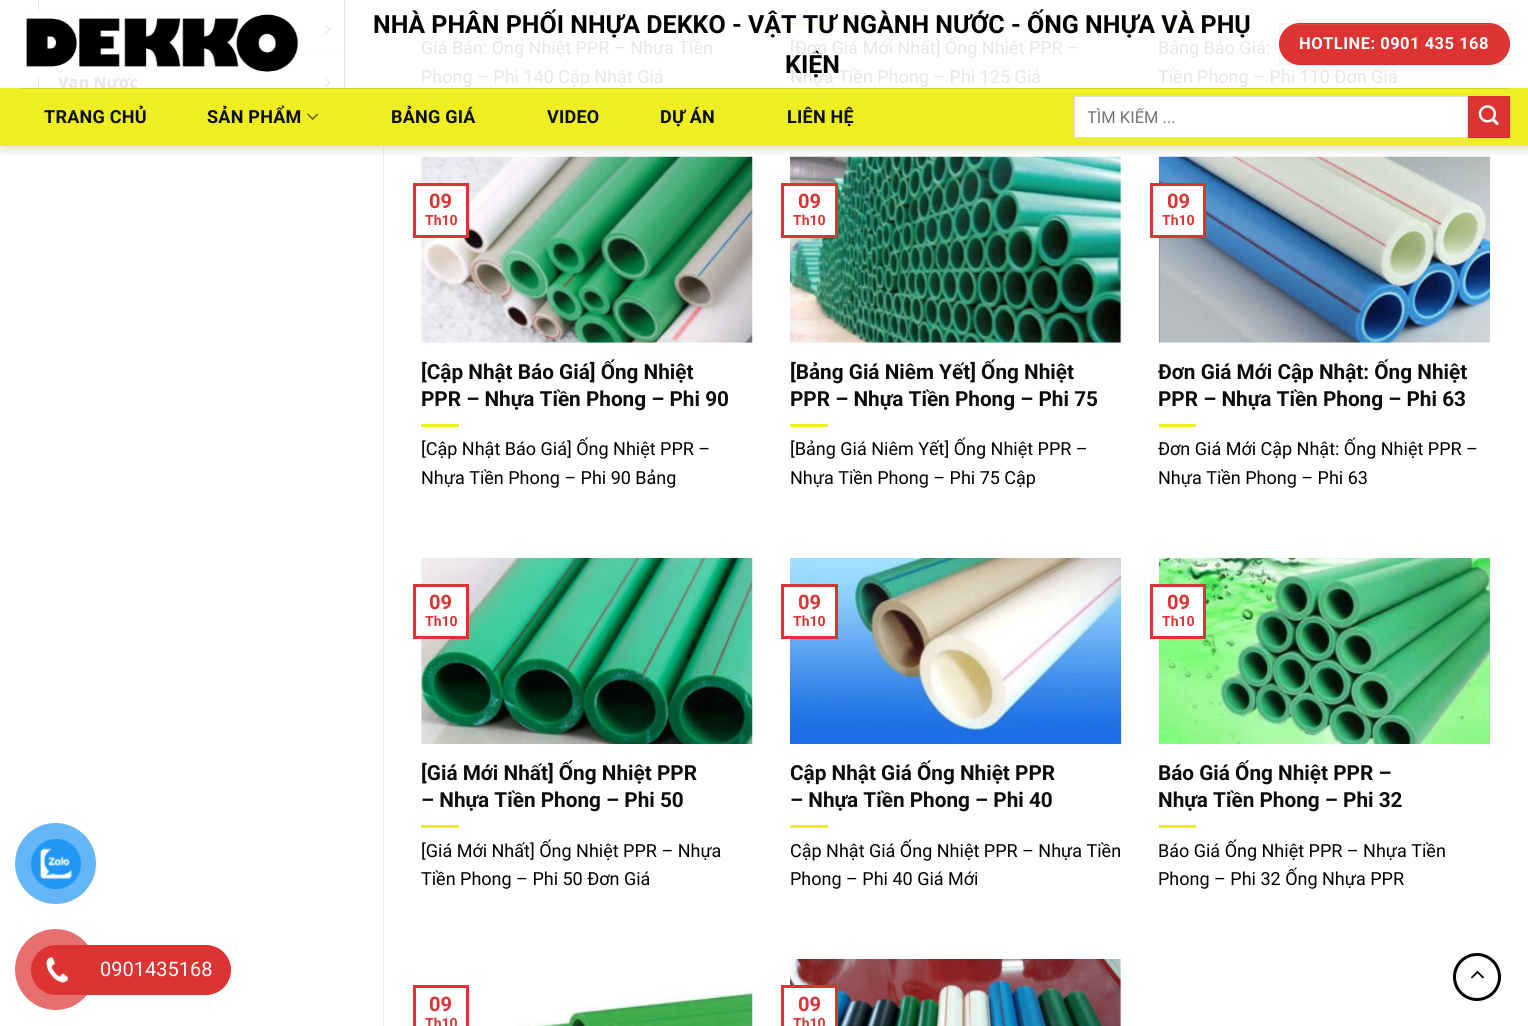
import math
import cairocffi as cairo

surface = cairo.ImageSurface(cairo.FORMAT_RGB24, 1528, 1026)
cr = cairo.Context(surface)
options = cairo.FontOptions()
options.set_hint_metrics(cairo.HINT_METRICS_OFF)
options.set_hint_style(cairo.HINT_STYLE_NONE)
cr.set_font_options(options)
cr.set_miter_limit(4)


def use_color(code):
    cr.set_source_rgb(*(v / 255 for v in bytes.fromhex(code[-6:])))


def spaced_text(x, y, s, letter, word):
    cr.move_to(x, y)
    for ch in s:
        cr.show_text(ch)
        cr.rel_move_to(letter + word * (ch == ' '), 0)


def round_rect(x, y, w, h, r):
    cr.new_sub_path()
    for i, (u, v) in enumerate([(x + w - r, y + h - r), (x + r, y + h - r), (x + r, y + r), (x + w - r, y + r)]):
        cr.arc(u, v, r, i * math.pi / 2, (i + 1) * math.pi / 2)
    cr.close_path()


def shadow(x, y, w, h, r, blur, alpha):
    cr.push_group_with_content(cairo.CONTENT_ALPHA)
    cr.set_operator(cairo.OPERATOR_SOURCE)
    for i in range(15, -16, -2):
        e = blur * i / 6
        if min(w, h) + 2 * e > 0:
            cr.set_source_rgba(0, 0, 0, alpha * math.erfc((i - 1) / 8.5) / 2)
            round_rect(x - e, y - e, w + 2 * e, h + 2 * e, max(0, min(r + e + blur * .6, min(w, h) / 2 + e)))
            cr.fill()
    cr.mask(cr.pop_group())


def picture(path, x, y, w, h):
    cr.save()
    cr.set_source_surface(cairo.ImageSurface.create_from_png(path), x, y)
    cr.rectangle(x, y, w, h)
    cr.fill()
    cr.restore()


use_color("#ffffff")
cr.paint()
cr.rectangle(38.5, -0.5, 306, 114)
use_color("#e7e6e6")
cr.set_line_width(1)
cr.stroke()
use_color("#fafafa")
cr.rectangle(308, 50, 36, 1)
cr.fill()
picture("img4.png", 325, 24, 6, 10)
picture("img5.png", 325, 78, 6, 10)
use_color("#ececec")
cr.rectangle(383, 146, 1, 880)
cr.fill()
use_color("#fdfde9")
cr.rectangle(421, 23, 38, 3)
cr.fill()
cr.rectangle(790, 23, 38, 3)
cr.fill()
cr.rectangle(1159, 23, 37, 3)
cr.fill()
picture("img6.png", 421, 156, 332, 187)
picture("img7.png", 790, 156, 332, 187)
picture("img8.png", 1158, 156, 332, 187)
cr.save()
cr.rectangle(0, 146, 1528, 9)
cr.clip()
use_color("#000000")
shadow(1, 1, 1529, 147, 0, 6, 0.15)
cr.restore()
cr.select_font_face("Open Sans", cairo.FONT_SLANT_NORMAL, cairo.FONT_WEIGHT_BOLD)
cr.set_font_size(16.25)
use_color("#e7e7e7")
cr.move_to(58, 88)
cr.show_text("Van Nước")
picture("img1.png", 23, 10, 285, 68)
cr.select_font_face("Roboto", cairo.FONT_SLANT_NORMAL, cairo.FONT_WEIGHT_BOLD)
cr.set_font_size(25)
use_color("#000000")
cr.move_to(373, 33)
cr.show_text("NHÀ PHÂN PHỐI NHỰA DEKKO - VẬT TƯ NGÀNH NƯỚC - ỐNG NHỰA VÀ PHỤ")
cr.select_font_face("Roboto")
cr.set_font_size(18)
use_color("#e7e7e7")
cr.move_to(790, 83)
cr.show_text("Nhựa Tiền Phong – Phi 125 Giá")
cr.select_font_face("Roboto", cairo.FONT_SLANT_NORMAL, cairo.FONT_WEIGHT_BOLD)
cr.set_font_size(25)
use_color("#000000")
cr.move_to(785, 73)
cr.show_text("KIỆN")
use_color("#dd3333")
round_rect(1279, 23, 231, 42, 21)
cr.fill()
cr.rectangle(1279.5, 23.5, 230, 41)
cr.set_source_rgba(0, 0, 0, 0.05)
cr.stroke()
use_color("#e04747")
cr.new_path()
cr.move_to(1300, 24)
cr.line_to(1294, 25)
cr.line_to(1495, 25)
cr.line_to(1489, 24)
cr.close_path()
cr.fill()
cr.set_font_size(16.5)
use_color("#ffffff")
spaced_text(1299, 49, "HOTLINE: 0901 435 168", 0.5, 0)
use_color("#eeee22")
cr.rectangle(0, 88, 1528, 58)
cr.fill()
use_color("#d6d61f")
cr.rectangle(19, 88, 1491, 1)
cr.fill()
cr.set_font_size(18)
use_color("#0c0c0c")
spaced_text(44, 123, "TRANG CHỦ", 0.25, 0)
spaced_text(207, 123, "SẢN PHẨM", 0.25, 0)
picture("img2.png", 307, 113, 12, 7)
spaced_text(391, 123, "BẢNG GIÁ", 0.25, 0)
spaced_text(547, 123, "VIDEO", 0.25, 0)
spaced_text(660, 123, "DỰ ÁN", 0.25, 0)
spaced_text(787, 123, "LIÊN HỆ", 0.25, 0)
use_color("#ffffff")
cr.rectangle(1074.5, 96.5, 393, 41)
cr.fill_preserve()
use_color("#dddddd")
cr.stroke()
cr.save()
cr.rectangle(1088, 108, 361, 18)
cr.clip()
cr.select_font_face("Roboto")
cr.set_font_size(16.5)
use_color("#757575")
cr.move_to(1087, 123)
cr.show_text("TÌM KIẾM ...")
cr.restore()
use_color("#dd3333")
cr.rectangle(1468.5, 96.5, 41, 41)
cr.fill_preserve()
use_color("#d23030")
cr.stroke()
picture("img3.png", 1478, 105, 21, 20)
cr.select_font_face("Roboto")
use_color("#e7e7e7")
cr.move_to(421, 54)
cr.show_text("Giá Bán: Ống Nhiệt PPR – Nhựa Tiền")
cr.move_to(421, 83)
cr.show_text("Phong – Phi 140 Cập Nhật Giá")
cr.move_to(790, 54)
cr.show_text("[Đơn Giá Mới Nhất] Ống Nhiệt PPR –")
cr.move_to(1158, 54)
cr.show_text("Bảng Báo Giá:")
cr.move_to(1158, 83)
cr.show_text("Tiền Phong – Phi 110 Đơn Giá")
use_color("#ffffff")
cr.rectangle(421, 186, 45, 49)
cr.fill()
cr.rectangle(414.5, 184.5, 53, 52)
use_color("#dd3333")
cr.set_line_width(3)
cr.stroke()
cr.select_font_face("Roboto", cairo.FONT_SLANT_NORMAL, cairo.FONT_WEIGHT_BOLD)
cr.set_font_size(20)
cr.move_to(429, 208)
cr.show_text("09")
cr.set_font_size(14)
cr.move_to(425, 225)
cr.show_text("Th10")
cr.set_font_size(20.75)
use_color("#0c0c0c")
cr.move_to(421, 379)
cr.show_text("[Cập Nhật Báo Giá] Ống Nhiệt")
cr.move_to(421, 406)
cr.show_text("PPR – Nhựa Tiền Phong – Phi 90")
use_color("#eeee22")
cr.rectangle(421, 424, 38, 3)
cr.fill()
cr.select_font_face("Roboto")
cr.set_font_size(18)
use_color("#000000")
cr.move_to(421, 455)
cr.show_text("[Cập Nhật Báo Giá] Ống Nhiệt PPR –")
cr.move_to(421, 484)
cr.show_text("Nhựa Tiền Phong – Phi 90 Bảng")
use_color("#ffffff")
cr.rectangle(790, 186, 45, 49)
cr.fill()
cr.rectangle(782.5, 184.5, 54, 52)
use_color("#dd3333")
cr.stroke()
cr.select_font_face("Roboto", cairo.FONT_SLANT_NORMAL, cairo.FONT_WEIGHT_BOLD)
cr.set_font_size(20)
cr.move_to(798, 208)
cr.show_text("09")
cr.set_font_size(14)
cr.move_to(793, 225)
cr.show_text("Th10")
cr.set_font_size(20.75)
use_color("#0c0c0c")
cr.move_to(790, 379)
cr.show_text("[Bảng Giá Niêm Yết] Ống Nhiệt")
cr.move_to(790, 406)
cr.show_text("PPR – Nhựa Tiền Phong – Phi 75")
use_color("#eeee22")
cr.rectangle(790, 424, 38, 3)
cr.fill()
cr.select_font_face("Roboto")
cr.set_font_size(18)
use_color("#000000")
cr.move_to(790, 455)
cr.show_text("[Bảng Giá Niêm Yết] Ống Nhiệt PPR –")
cr.move_to(790, 484)
cr.show_text("Nhựa Tiền Phong – Phi 75 Cập")
use_color("#ffffff")
cr.rectangle(1158, 186, 45, 49)
cr.fill()
cr.rectangle(1151.5, 184.5, 53, 52)
use_color("#dd3333")
cr.stroke()
cr.select_font_face("Roboto", cairo.FONT_SLANT_NORMAL, cairo.FONT_WEIGHT_BOLD)
cr.set_font_size(20)
cr.move_to(1167, 208)
cr.show_text("09")
cr.set_font_size(14)
cr.move_to(1162, 225)
cr.show_text("Th10")
cr.set_font_size(20.75)
use_color("#0c0c0c")
cr.move_to(1158, 379)
cr.show_text("Đơn Giá Mới Cập Nhật: Ống Nhiệt")
cr.move_to(1158, 406)
cr.show_text("PPR – Nhựa Tiền Phong – Phi 63")
use_color("#eeee22")
cr.rectangle(1159, 424, 37, 3)
cr.fill()
cr.select_font_face("Roboto")
cr.set_font_size(18)
use_color("#000000")
cr.move_to(1158, 455)
cr.show_text("Đơn Giá Mới Cập Nhật: Ống Nhiệt PPR –")
cr.move_to(1158, 484)
cr.show_text("Nhựa Tiền Phong – Phi 63")
picture("img9.png", 421, 557, 332, 187)
use_color("#ffffff")
cr.rectangle(421, 587, 45, 49)
cr.fill()
cr.rectangle(414.5, 585.5, 53, 52)
use_color("#dd3333")
cr.stroke()
cr.select_font_face("Roboto", cairo.FONT_SLANT_NORMAL, cairo.FONT_WEIGHT_BOLD)
cr.set_font_size(20)
cr.move_to(429, 609)
cr.show_text("09")
cr.set_font_size(14)
cr.move_to(425, 626)
cr.show_text("Th10")
cr.set_font_size(20.75)
use_color("#0c0c0c")
cr.move_to(421, 780)
cr.show_text("[Giá Mới Nhất] Ống Nhiệt PPR")
cr.move_to(421, 807)
cr.show_text("– Nhựa Tiền Phong – Phi 50")
use_color("#eeee22")
cr.rectangle(421, 825, 38, 3)
cr.fill()
cr.select_font_face("Roboto")
cr.set_font_size(18)
use_color("#000000")
cr.move_to(421, 857)
cr.show_text("[Giá Mới Nhất] Ống Nhiệt PPR – Nhựa")
cr.move_to(421, 885)
cr.show_text("Tiền Phong – Phi 50 Đơn Giá")
picture("img10.png", 790, 557, 332, 187)
use_color("#ffffff")
cr.rectangle(790, 587, 45, 49)
cr.fill()
cr.rectangle(782.5, 585.5, 54, 52)
use_color("#dd3333")
cr.stroke()
cr.select_font_face("Roboto", cairo.FONT_SLANT_NORMAL, cairo.FONT_WEIGHT_BOLD)
cr.set_font_size(20)
cr.move_to(798, 609)
cr.show_text("09")
cr.set_font_size(14)
cr.move_to(793, 626)
cr.show_text("Th10")
cr.set_font_size(20.75)
use_color("#0c0c0c")
cr.move_to(790, 780)
cr.show_text("Cập Nhật Giá Ống Nhiệt PPR")
cr.move_to(790, 807)
cr.show_text("– Nhựa Tiền Phong – Phi 40")
use_color("#eeee22")
cr.rectangle(790, 825, 38, 3)
cr.fill()
cr.select_font_face("Roboto")
cr.set_font_size(18)
use_color("#000000")
cr.move_to(790, 857)
cr.show_text("Cập Nhật Giá Ống Nhiệt PPR – Nhựa Tiền")
cr.move_to(790, 885)
cr.show_text("Phong – Phi 40 Giá Mới")
picture("img11.png", 1158, 557, 332, 187)
use_color("#ffffff")
cr.rectangle(1158, 587, 45, 49)
cr.fill()
cr.rectangle(1151.5, 585.5, 53, 52)
use_color("#dd3333")
cr.stroke()
cr.select_font_face("Roboto", cairo.FONT_SLANT_NORMAL, cairo.FONT_WEIGHT_BOLD)
cr.set_font_size(20)
cr.move_to(1167, 609)
cr.show_text("09")
cr.set_font_size(14)
cr.move_to(1162, 626)
cr.show_text("Th10")
cr.set_font_size(20.75)
use_color("#0c0c0c")
cr.move_to(1158, 780)
cr.show_text("Báo Giá Ống Nhiệt PPR –")
cr.move_to(1158, 807)
cr.show_text("Nhựa Tiền Phong – Phi 32")
use_color("#eeee22")
cr.rectangle(1159, 825, 37, 3)
cr.fill()
cr.select_font_face("Roboto")
cr.set_font_size(18)
use_color("#000000")
cr.move_to(1158, 857)
cr.show_text("Báo Giá Ống Nhiệt PPR – Nhựa Tiền")
cr.move_to(1158, 885)
cr.show_text("Phong – Phi 32 Ống Nhựa PPR")
cr.rectangle(414.5, 986.5, 53, 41)
use_color("#dd3333")
cr.stroke()
cr.select_font_face("Roboto", cairo.FONT_SLANT_NORMAL, cairo.FONT_WEIGHT_BOLD)
cr.set_font_size(20)
cr.move_to(429, 1011)
cr.show_text("09")
cr.set_font_size(14)
cr.move_to(425, 1028)
cr.show_text("Th10")
picture("img12.png", 517, 988, 236, 38)
picture("img13.png", 790, 959, 332, 67)
use_color("#ffffff")
cr.rectangle(790, 988, 45, 38)
cr.fill()
cr.rectangle(782.5, 986.5, 54, 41)
use_color("#dd3333")
cr.stroke()
cr.set_font_size(20)
cr.move_to(798, 1011)
cr.show_text("09")
cr.set_font_size(14)
cr.move_to(793, 1028)
cr.show_text("Th10")
cr.new_path()
cr.arc(1477, 977, 22.5, 0, 2 * math.pi)
use_color("#000000")
cr.stroke()
picture("img14.png", 1471, 970, 13, 9)
use_color("#64b6f7")
cr.arc(55.5, 863.5, 40.5, 0, 2 * math.pi)
cr.fill()
use_color("#2196f3")
cr.arc(56, 864, 25, 0, 2 * math.pi)
cr.fill()
picture("img15.png", 39, 848, 33, 32)
use_color("#dd3333")
round_rect(38, 945, 193, 50, 25)
cr.fill()
cr.set_source_rgba(0.867, 0.2, 0.2, 0.7)
cr.arc(55.5, 969.5, 40.5, 0, 2 * math.pi)
cr.fill()
use_color("#dd3333")
cr.arc(56, 970, 25, 0, 2 * math.pi)
cr.fill()
picture("img16.png", 46, 956, 22, 27)
cr.select_font_face("Roboto")
cr.set_font_size(20)
use_color("#ffffff")
cr.move_to(100, 976)
cr.show_text("0901435168")
surface.write_to_png("result.png")
